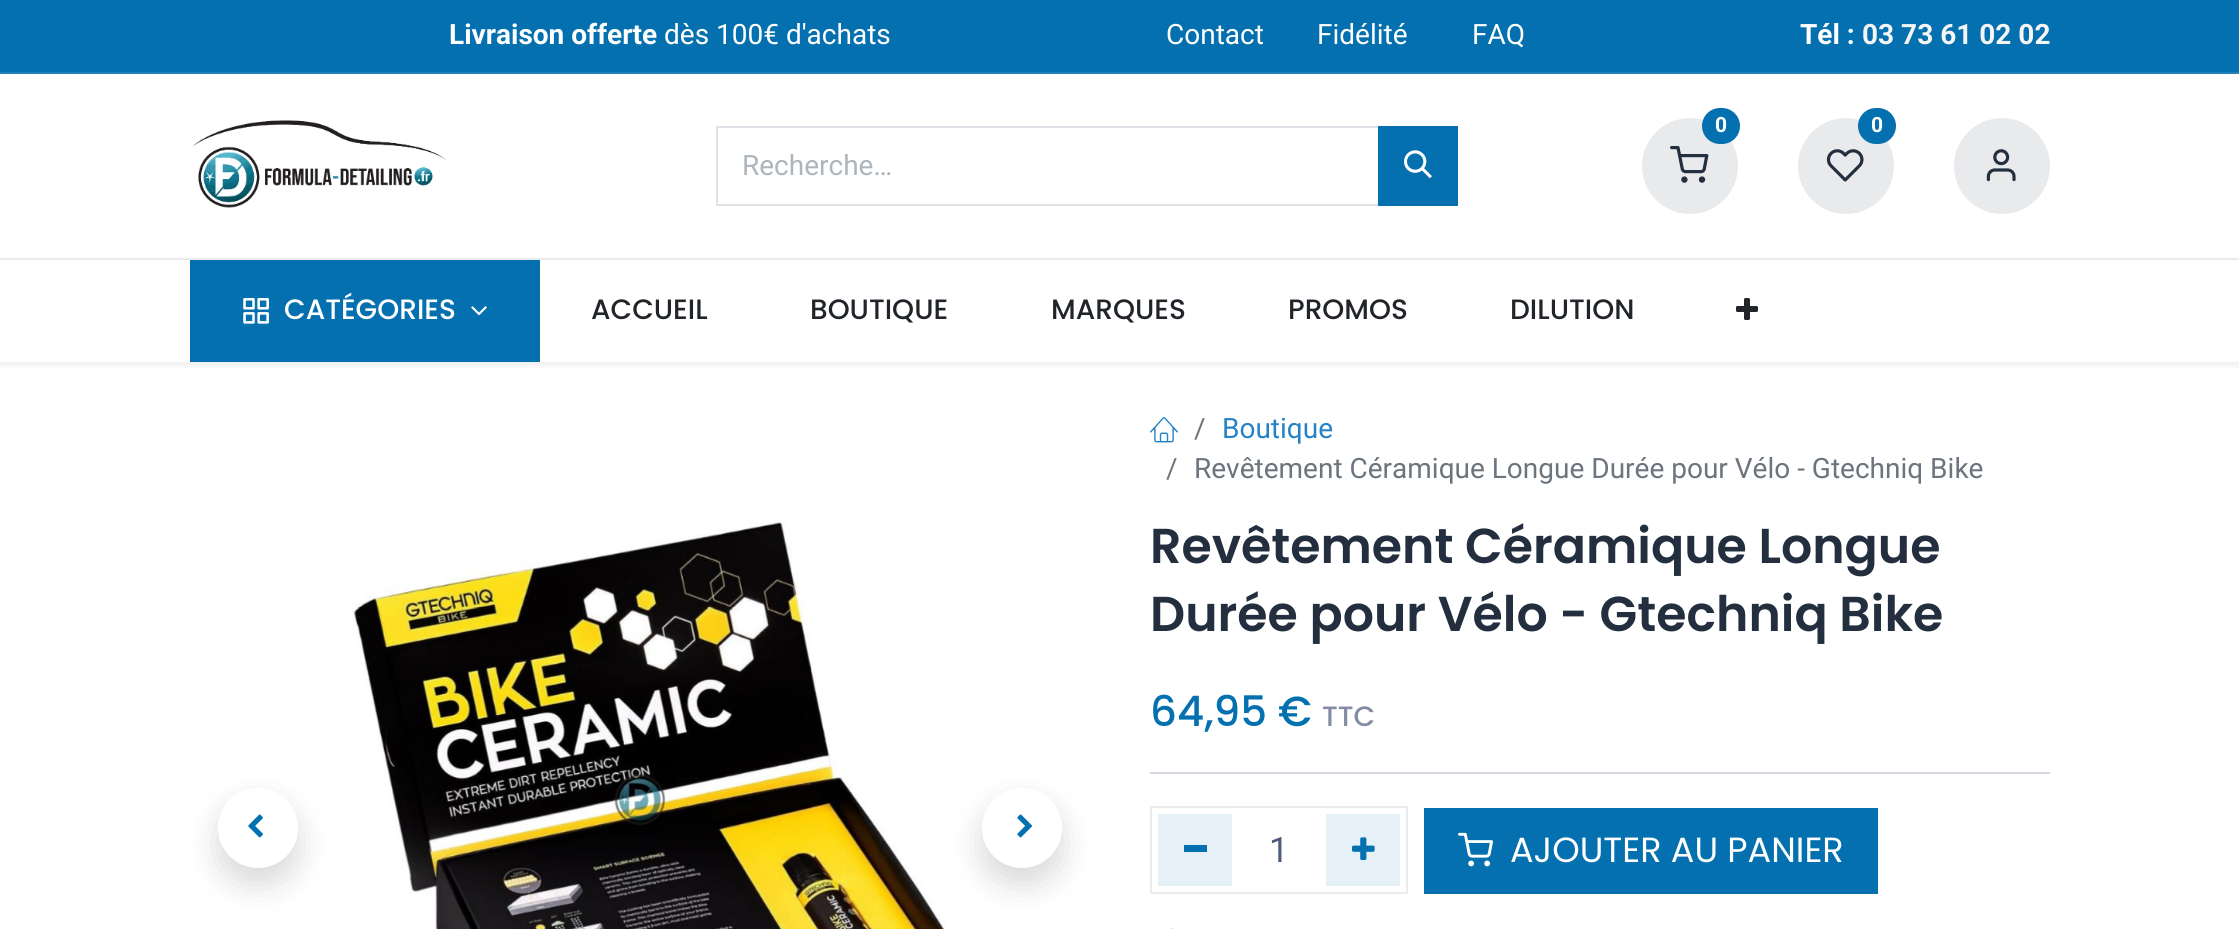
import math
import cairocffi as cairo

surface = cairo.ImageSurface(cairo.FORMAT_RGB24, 2239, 929)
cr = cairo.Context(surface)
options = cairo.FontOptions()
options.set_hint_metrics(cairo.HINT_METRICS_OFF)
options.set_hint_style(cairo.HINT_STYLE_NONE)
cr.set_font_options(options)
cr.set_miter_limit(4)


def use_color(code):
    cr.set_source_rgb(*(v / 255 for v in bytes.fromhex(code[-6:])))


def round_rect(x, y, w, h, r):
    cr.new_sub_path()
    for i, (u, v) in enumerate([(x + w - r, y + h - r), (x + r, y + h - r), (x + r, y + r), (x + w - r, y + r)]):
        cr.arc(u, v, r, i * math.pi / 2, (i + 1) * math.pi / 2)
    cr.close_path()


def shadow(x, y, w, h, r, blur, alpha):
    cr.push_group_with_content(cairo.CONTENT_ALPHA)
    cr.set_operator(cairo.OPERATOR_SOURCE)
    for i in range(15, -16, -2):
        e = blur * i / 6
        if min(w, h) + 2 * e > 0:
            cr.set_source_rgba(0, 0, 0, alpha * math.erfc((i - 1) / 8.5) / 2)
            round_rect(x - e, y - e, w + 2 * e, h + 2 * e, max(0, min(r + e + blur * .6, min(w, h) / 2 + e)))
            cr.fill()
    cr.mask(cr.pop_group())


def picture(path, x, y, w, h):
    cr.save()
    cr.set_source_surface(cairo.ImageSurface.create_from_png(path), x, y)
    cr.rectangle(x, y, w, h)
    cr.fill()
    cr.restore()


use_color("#ffffff")
cr.paint()
use_color("#0470af")
cr.rectangle(0, 0, 2239, 72)
cr.fill()
use_color("#2281b9")
cr.rectangle(0, 72, 2239, 2)
cr.fill()
cr.select_font_face("Roboto", cairo.FONT_SLANT_NORMAL, cairo.FONT_WEIGHT_BOLD)
cr.set_font_size(28)
use_color("#ffffff")
cr.move_to(449, 44)
cr.show_text("Livraison offerte")
cr.select_font_face("Roboto")
cr.move_to(664, 44)
cr.show_text("dès 100€ d'achats")
cr.move_to(1166, 44)
cr.show_text("Contact")
cr.move_to(1317, 44)
cr.show_text("Fidélité")
cr.move_to(1472, 44)
cr.show_text("FAQ")
cr.select_font_face("Roboto", cairo.FONT_SLANT_NORMAL, cairo.FONT_WEIGHT_BOLD)
cr.move_to(1800, 44)
cr.show_text("Tél :")
use_color("#f5f5f5")
cr.move_to(1862, 44)
cr.show_text("03 73 61 02 02")
use_color("#eaebef")
cr.rectangle(0, 258, 2239, 2)
cr.fill()
picture("img1.png", 193, 120, 253, 88)
cr.rectangle(717, 127, 662, 78)
use_color("#dee2e6")
cr.stroke()
cr.select_font_face("Roboto")
use_color("#adb5bd")
cr.move_to(742, 175)
cr.show_text("Recherche…")
use_color("#0470af")
cr.rectangle(1378, 126, 80, 80)
cr.fill()
picture("img2.png", 1404, 150, 28, 29)
use_color("#e9eaec")
cr.arc(1690, 166, 48, 0, 2 * math.pi)
cr.fill()
use_color("#0470af")
round_rect(1702, 108, 38, 36, 18)
cr.fill()
cr.select_font_face("Roboto", cairo.FONT_SLANT_NORMAL, cairo.FONT_WEIGHT_BOLD)
cr.set_font_size(21)
use_color("#ffffff")
cr.move_to(1715, 132)
cr.show_text("0")
picture("img3.png", 1670, 146, 39, 37)
use_color("#e9eaec")
cr.arc(1846, 166, 48, 0, 2 * math.pi)
cr.fill()
use_color("#0470af")
round_rect(1858, 108, 38, 36, 18)
cr.fill()
use_color("#ffffff")
cr.move_to(1871, 132)
cr.show_text("0")
picture("img4.png", 1826, 149, 38, 33)
use_color("#e9eaec")
cr.arc(2002, 166, 48, 0, 2 * math.pi)
cr.fill()
picture("img5.png", 1986, 149, 30, 33)
cr.save()
cr.rectangle(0, 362, 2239, 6)
cr.clip()
use_color("#000000")
shadow(0, 264, 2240, 102, 0, 4, 0.07)
cr.restore()
use_color("#0470af")
cr.rectangle(190, 260, 350, 102)
cr.fill()
picture("img6.png", 243, 298, 26, 26)
cr.select_font_face("Poppins Medium")
cr.set_font_size(28)
use_color("#ffffff")
cr.move_to(284, 319)
cr.show_text("CATÉGORIES")
picture("img7.png", 471, 306, 16, 10)
use_color("#212529")
cr.move_to(591, 319)
cr.show_text("ACCUEIL")
cr.move_to(810, 319)
cr.show_text("BOUTIQUE")
cr.move_to(1051, 319)
cr.show_text("MARQUES")
cr.move_to(1288, 319)
cr.show_text("PROMOS")
cr.move_to(1510, 319)
cr.show_text("DILUTION")
picture("img8.png", 1736, 298, 22, 22)
use_color("#000000")
shadow(218, 804, 80, 80, 40, 16, 0.15)
use_color("#ffffff")
cr.arc(258, 828, 40, 0, 2 * math.pi)
cr.fill()
picture("img9.png", 248, 814, 15, 24)
picture("img10.png", 352, 522, 594, 407)
use_color("#000000")
shadow(982, 804, 80, 80, 40, 16, 0.15)
use_color("#ffffff")
cr.arc(1022, 828, 40, 0, 2 * math.pi)
cr.fill()
picture("img11.png", 1017, 814, 15, 24)
picture("img12.png", 1150, 417, 28, 26)
cr.select_font_face("Roboto")
use_color("#6c757d")
cr.move_to(1194, 438)
cr.show_text("/")
use_color("#2483c7")
cr.move_to(1222, 438)
cr.show_text("Boutique")
use_color("#6c757d")
cr.move_to(1166, 478)
cr.show_text("/")
cr.move_to(1194, 478)
cr.show_text("Revêtement Céramique Longue Durée pour Vélo - Gtechniq Bike")
cr.select_font_face("Poppins SemiBold")
cr.set_font_size(49)
use_color("#232f3e")
cr.move_to(1150, 563)
cr.show_text("Revêtement Céramique Longue")
cr.move_to(1150, 631)
cr.show_text("Durée pour Vélo - Gtechniq Bike")
cr.select_font_face("Poppins Medium")
cr.set_font_size(42)
use_color("#0470af")
cr.move_to(1150, 726)
cr.show_text("64,95 €")
cr.set_font_size(28)
use_color("#828ca3")
cr.move_to(1322, 726)
cr.show_text("TTC")
use_color("#d3d6de")
cr.rectangle(1150, 772, 900, 2)
cr.fill()
cr.rectangle(1151, 807, 256, 86)
use_color("#e9ecef")
cr.stroke()
use_color("#e6f1f7")
cr.rectangle(1158, 814, 74, 72)
cr.fill()
use_color("#0470af")
cr.rectangle(1184, 845, 23, 7)
cr.fill()
cr.select_font_face("Roboto")
cr.set_font_size(35)
use_color("#4d5b7c")
cr.move_to(1269, 862)
cr.show_text("1")
use_color("#e6f1f7")
cr.rectangle(1326, 814, 74, 72)
cr.fill()
picture("img13.png", 1352, 837, 23, 23)
use_color("#0470af")
cr.rectangle(1424, 808, 454, 86)
cr.fill()
picture("img14.png", 1458, 832, 35, 35)
cr.select_font_face("Poppins")
use_color("#ffffff")
cr.move_to(1510, 862)
cr.show_text("AJOUTER AU PANIER")
picture("img15.png", 1171, 928, 2, 1)
surface.write_to_png("result.png")
